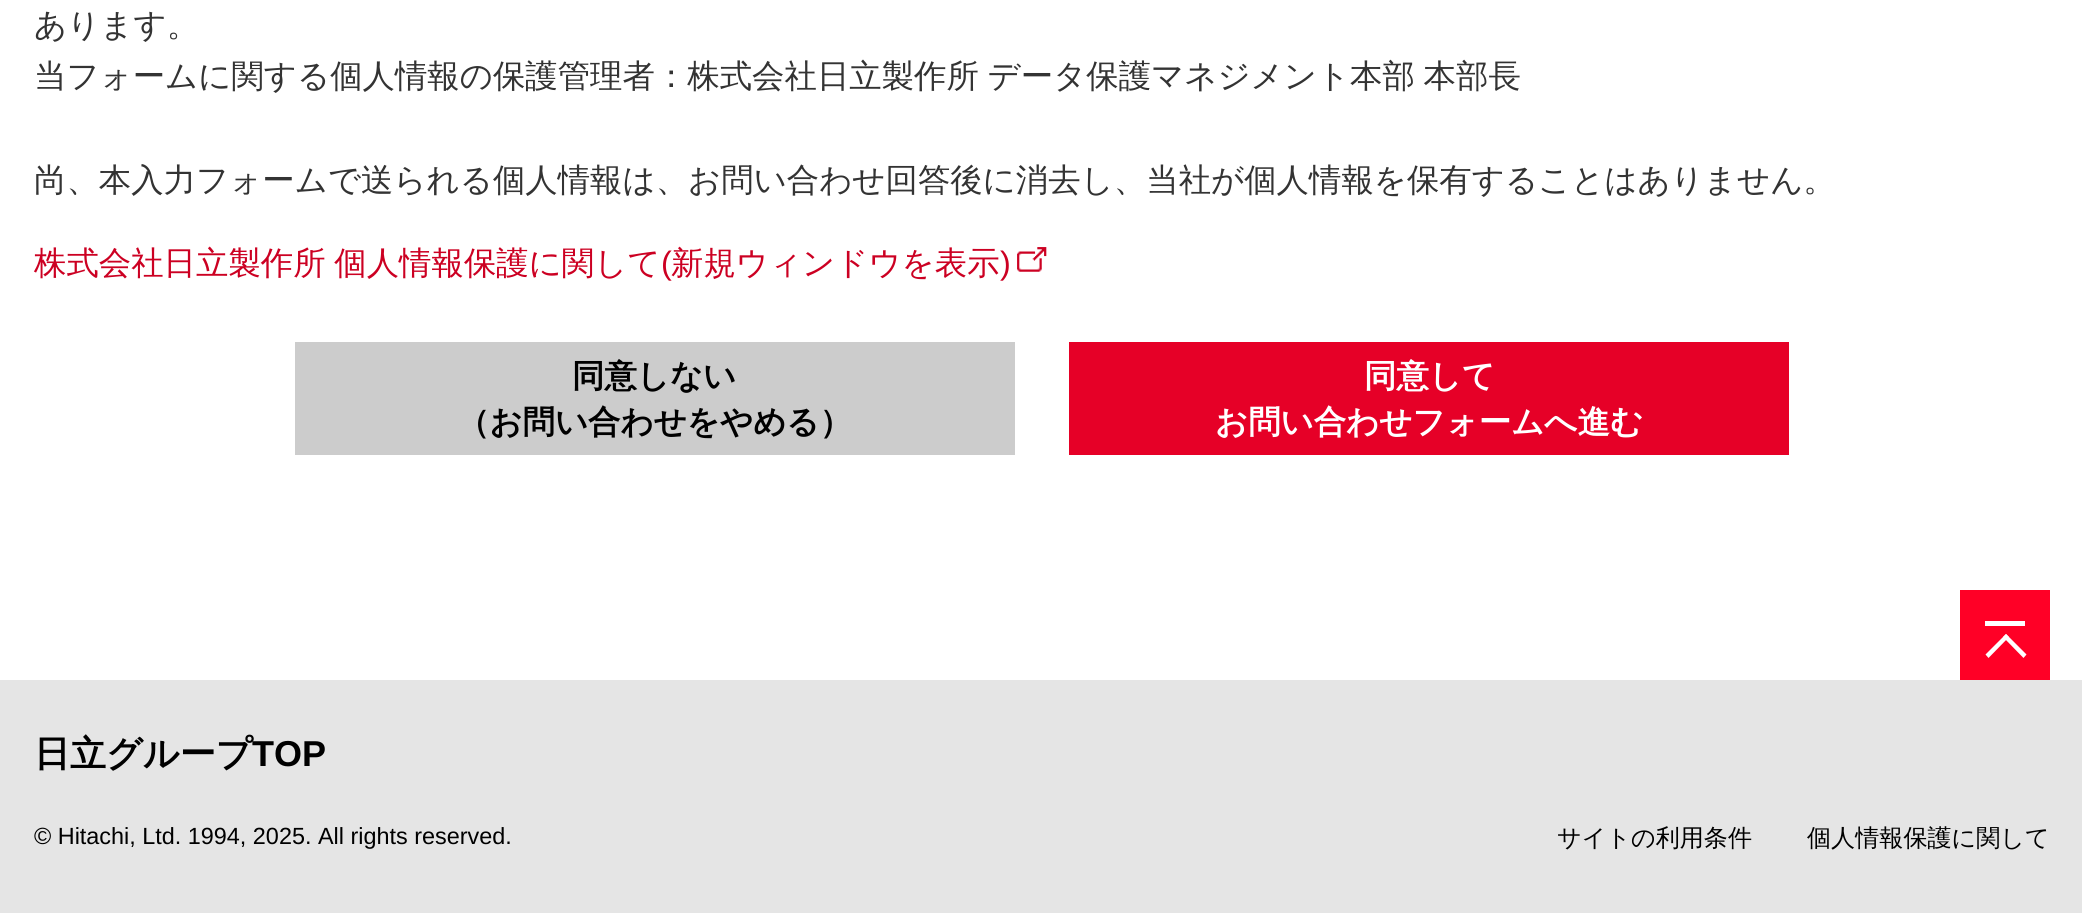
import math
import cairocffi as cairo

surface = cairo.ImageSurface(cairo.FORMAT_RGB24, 2082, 913)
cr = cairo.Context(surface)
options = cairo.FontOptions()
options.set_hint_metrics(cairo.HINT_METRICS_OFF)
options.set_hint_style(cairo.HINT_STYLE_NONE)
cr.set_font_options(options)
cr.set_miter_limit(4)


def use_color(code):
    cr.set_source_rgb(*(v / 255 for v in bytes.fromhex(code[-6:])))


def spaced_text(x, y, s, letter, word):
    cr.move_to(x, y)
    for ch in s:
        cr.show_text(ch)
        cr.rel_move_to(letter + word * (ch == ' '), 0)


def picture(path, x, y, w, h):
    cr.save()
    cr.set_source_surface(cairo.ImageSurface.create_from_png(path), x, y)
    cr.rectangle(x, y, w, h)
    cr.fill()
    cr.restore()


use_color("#e5e5e5")
cr.paint()
use_color("#ffffff")
cr.rectangle(0, 0, 2082, 680)
cr.fill()
cr.select_font_face("WenQuanYi Zen Hei Medium")
cr.set_font_size(32.4)
use_color("#333333")
cr.move_to(34, 36)
cr.show_text("あります。")
spaced_text(34, 87, "当フォームに関する個人情報の保護管理者：株式会社日立製作所 データ保護マネジメント本部 本部長", 0, -1)
cr.move_to(34, 191)
cr.show_text("尚、本入力フォームで送られる個人情報は、お問い合わせ回答後に消去し、当社が個人情報を保有することはありません。")
use_color("#cc0022")
spaced_text(34, 274, "株式会社日立製作所 個人情報保護に関して", 0, -1)
cr.select_font_face("Liberation Sans")
cr.move_to(661, 274)
cr.show_text("(")
cr.select_font_face("WenQuanYi Zen Hei Medium")
cr.move_to(671, 274)
cr.show_text("新規ウィンドウを表示")
cr.select_font_face("Liberation Sans")
cr.move_to(1000, 274)
cr.show_text(")")
picture("img1.png", 1017, 247, 30, 25)
use_color("#cccccc")
cr.rectangle(295, 342, 720, 113)
cr.fill()
cr.select_font_face("WenQuanYi Zen Hei", cairo.FONT_SLANT_NORMAL, cairo.FONT_WEIGHT_BOLD)
use_color("#000000")
cr.move_to(572, 387)
cr.show_text("同意しない")
cr.move_to(457, 433)
cr.show_text("（お問い合わせをやめる）")
use_color("#e60027")
cr.rectangle(1069, 342, 720, 113)
cr.fill()
use_color("#ffffff")
cr.move_to(1364, 387)
cr.show_text("同意して")
cr.move_to(1215, 433)
cr.show_text("お問い合わせフォームへ進む")
use_color("#ff0026")
cr.rectangle(1960, 590, 90, 90)
cr.fill()
use_color("#ffffff")
cr.rectangle(1985, 621, 40, 5)
cr.fill()
cr.new_path()
cr.move_to(1985.5, 654.5)
cr.line_to(2006, 634)
cr.line_to(2009, 637)
cr.line_to(1988.5, 658)
cr.close_path()
cr.fill()
cr.new_path()
cr.move_to(2003, 637)
cr.line_to(2006, 634)
cr.line_to(2026.5, 654.5)
cr.line_to(2023.5, 658)
cr.close_path()
cr.fill()
cr.set_font_size(36)
use_color("#000000")
cr.move_to(34, 766)
cr.show_text("日立グループ")
cr.select_font_face("Liberation Sans", cairo.FONT_SLANT_NORMAL, cairo.FONT_WEIGHT_BOLD)
cr.move_to(252, 766)
cr.show_text("TOP")
cr.select_font_face("Liberation Sans")
cr.set_font_size(23.4)
cr.move_to(34, 844)
cr.show_text("© Hitachi, Ltd. 1994, 2025. All rights reserved.")
cr.select_font_face("WenQuanYi Zen Hei Medium")
cr.set_font_size(24.1)
cr.move_to(1557, 846)
cr.show_text("サイトの利用条件")
cr.move_to(1807, 846)
cr.show_text("個人情報保護に関して")
surface.write_to_png("result.png")
